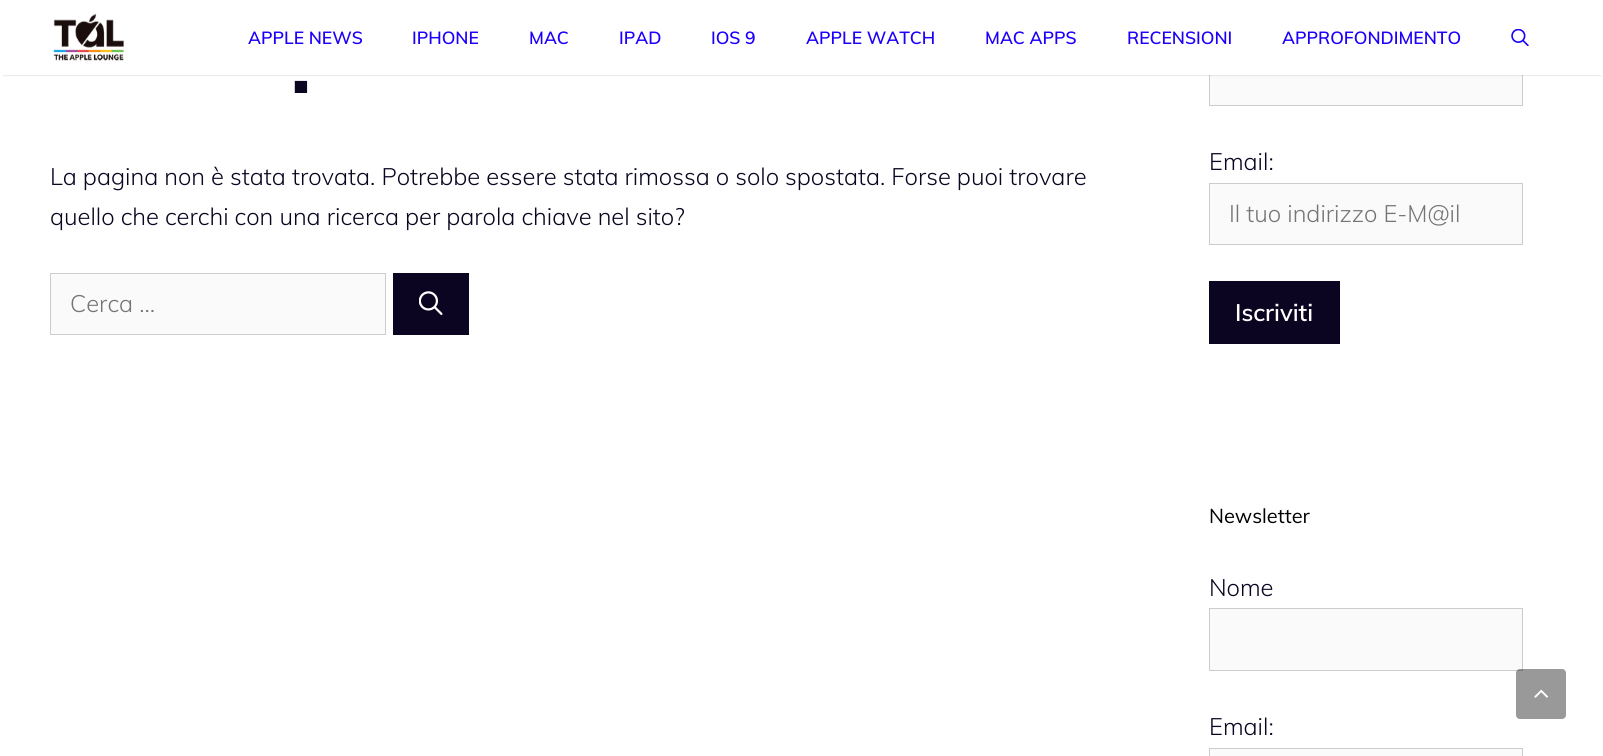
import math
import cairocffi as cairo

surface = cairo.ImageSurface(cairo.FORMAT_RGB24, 1603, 756)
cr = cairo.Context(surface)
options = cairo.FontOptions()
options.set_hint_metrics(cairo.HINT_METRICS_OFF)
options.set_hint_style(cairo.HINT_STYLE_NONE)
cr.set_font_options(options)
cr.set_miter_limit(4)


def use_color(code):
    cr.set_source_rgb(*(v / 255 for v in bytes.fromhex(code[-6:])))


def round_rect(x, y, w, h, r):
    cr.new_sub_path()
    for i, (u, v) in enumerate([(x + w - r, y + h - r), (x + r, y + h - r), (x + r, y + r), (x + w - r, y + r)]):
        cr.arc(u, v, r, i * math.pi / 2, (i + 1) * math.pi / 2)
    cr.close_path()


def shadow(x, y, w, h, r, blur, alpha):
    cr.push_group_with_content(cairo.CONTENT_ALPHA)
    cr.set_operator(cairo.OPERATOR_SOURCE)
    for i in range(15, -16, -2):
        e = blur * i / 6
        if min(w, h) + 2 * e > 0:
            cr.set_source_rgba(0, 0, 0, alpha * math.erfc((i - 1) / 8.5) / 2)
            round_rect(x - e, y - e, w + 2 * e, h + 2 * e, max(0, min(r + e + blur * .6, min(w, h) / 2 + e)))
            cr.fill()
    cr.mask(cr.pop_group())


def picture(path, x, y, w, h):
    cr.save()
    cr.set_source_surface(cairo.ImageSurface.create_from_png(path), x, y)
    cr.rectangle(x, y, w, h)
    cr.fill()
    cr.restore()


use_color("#ffffff")
cr.paint()
use_color("#fafafa")
cr.rectangle(1210, 75, 312, 30)
cr.fill()
cr.rectangle(1209.5, 43.5, 313, 62)
use_color("#cccccc")
cr.set_line_width(1)
cr.stroke()
use_color("#000000")
shadow(3, 5, 1598, 70, 0, 1, 0.2)
use_color("#ffffff")
cr.rectangle(1, 3, 1602, 72)
cr.fill()
picture("img1.png", 53, 13, 71, 48)
cr.select_font_face("Muli SemiBold")
cr.set_font_size(17.5)
use_color("#1d00fc")
cr.move_to(248, 44)
cr.show_text("APPLE NEWS")
cr.move_to(412, 44)
cr.show_text("IPHONE")
cr.move_to(529, 44)
cr.show_text("MAC")
cr.move_to(619, 44)
cr.show_text("IPAD")
cr.move_to(711, 44)
cr.show_text("IOS 9")
cr.move_to(806, 44)
cr.show_text("APPLE WATCH")
cr.move_to(985, 44)
cr.show_text("MAC APPS")
cr.move_to(1127, 44)
cr.show_text("RECENSIONI")
cr.move_to(1282, 44)
cr.show_text("APPROFONDIMENTO")
picture("img2.png", 1511, 29, 18, 17)
cr.select_font_face("Muli Black")
cr.set_font_size(65)
use_color("#0b0521")
cr.move_to(292, 93)
cr.show_text(".")
cr.select_font_face("Muli Light")
cr.set_font_size(23.75)
cr.move_to(50, 185)
cr.show_text("La pagina non è stata trovata. Potrebbe essere stata rimossa o solo spostata. Forse puoi trovare")
cr.move_to(50, 225)
cr.show_text("quello che cerchi con una ricerca per parola chiave nel sito?")
use_color("#fafafa")
cr.rectangle(50.5, 273.5, 335, 61)
cr.fill_preserve()
use_color("#cccccc")
cr.stroke()
use_color("#757575")
cr.move_to(70, 312)
cr.show_text("Cerca …")
use_color("#0b0521")
cr.rectangle(393, 273, 76, 62)
cr.fill()
picture("img3.png", 419, 291, 24, 24)
cr.move_to(1209, 170)
cr.show_text("Email:")
use_color("#fafafa")
cr.rectangle(1209.5, 183.5, 313, 61)
cr.fill_preserve()
use_color("#cccccc")
cr.stroke()
use_color("#757575")
cr.move_to(1229, 222)
cr.show_text("Il tuo indirizzo E-M@il")
use_color("#0b0521")
cr.rectangle(1209, 281, 131, 63)
cr.fill()
cr.select_font_face("Muli SemiBold")
use_color("#ffffff")
cr.move_to(1235, 321)
cr.show_text("Iscriviti")
cr.select_font_face("Muli")
cr.set_font_size(20)
use_color("#000000")
cr.move_to(1209, 523)
cr.show_text("Newsletter")
cr.select_font_face("Muli Light")
cr.set_font_size(23.75)
use_color("#0b0521")
cr.move_to(1209, 596)
cr.show_text("Nome")
use_color("#fafafa")
cr.rectangle(1209.5, 608.5, 313, 62)
cr.fill_preserve()
use_color("#cccccc")
cr.stroke()
use_color("#0b0521")
cr.move_to(1209, 735)
cr.show_text("Email:")
use_color("#fafafa")
cr.rectangle(1209.5, 748.5, 313, 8)
cr.fill_preserve()
use_color("#cccccc")
cr.stroke()
cr.set_source_rgba(0, 0, 0, 0.4)
round_rect(1516, 669, 50, 50, 4)
cr.fill()
picture("img4.png", 1534, 689, 14, 9)
surface.write_to_png("result.png")
